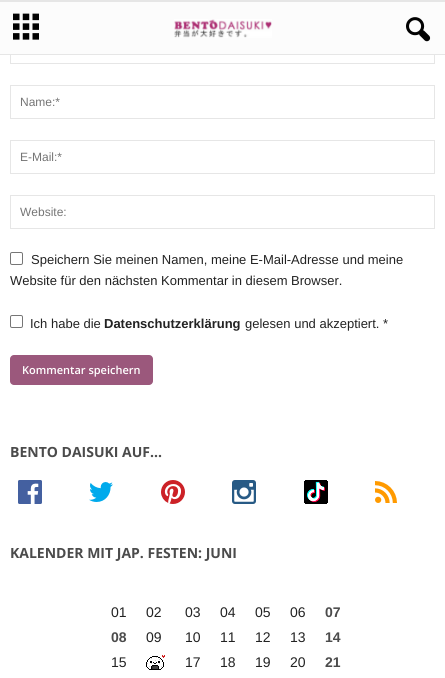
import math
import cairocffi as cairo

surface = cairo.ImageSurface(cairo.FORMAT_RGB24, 445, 678)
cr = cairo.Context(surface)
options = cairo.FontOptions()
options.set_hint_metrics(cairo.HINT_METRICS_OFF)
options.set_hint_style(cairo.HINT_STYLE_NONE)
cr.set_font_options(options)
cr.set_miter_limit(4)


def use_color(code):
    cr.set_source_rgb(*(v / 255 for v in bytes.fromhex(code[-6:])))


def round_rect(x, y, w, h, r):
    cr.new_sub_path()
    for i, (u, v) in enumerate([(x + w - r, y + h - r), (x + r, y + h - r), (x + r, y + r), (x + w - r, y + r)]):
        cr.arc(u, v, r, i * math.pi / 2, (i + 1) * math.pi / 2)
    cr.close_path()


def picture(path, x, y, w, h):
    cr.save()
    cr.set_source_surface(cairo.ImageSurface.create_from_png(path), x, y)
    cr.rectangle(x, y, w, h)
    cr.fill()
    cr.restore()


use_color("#ffffff")
cr.paint()
cr.rectangle(10.5, -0.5, 424, 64)
use_color("#e6e6e6")
cr.set_line_width(1)
cr.stroke()
use_color("#fcfcfc")
cr.rectangle(0, 2, 445, 52)
cr.fill()
use_color("#e6e6e6")
cr.rectangle(0, 0, 445, 2)
cr.fill()
cr.rectangle(0, 54, 445, 1)
cr.fill()
picture("img1.png", 13, 13, 26, 27)
picture("img2.png", 174, 19, 98, 19)
picture("img3.png", 406, 17, 25, 25)
cr.rectangle(10.5, 85.5, 424, 33)
cr.stroke()
cr.select_font_face("Liberation Sans")
cr.set_font_size(12)
use_color("#757575")
cr.move_to(20, 106)
cr.show_text("Name:*")
cr.rectangle(10.5, 140.5, 424, 33)
use_color("#e6e6e6")
cr.stroke()
use_color("#757575")
cr.move_to(20, 161)
cr.show_text("E-Mail:*")
cr.rectangle(10.5, 195.5, 424, 33)
use_color("#e6e6e6")
cr.stroke()
use_color("#757575")
cr.move_to(20, 216)
cr.show_text("Website:")
round_rect(10.5, 252.5, 12, 12, 1.5)
use_color("#767676")
cr.stroke()
cr.set_font_size(13)
use_color("#222222")
cr.move_to(31, 264)
cr.show_text("Speichern Sie meinen Namen, meine E-Mail-Adresse und meine")
cr.move_to(10, 285)
cr.show_text("Website für den nächsten Kommentar in diesem Browser.")
round_rect(10.5, 315.5, 12, 12, 1.5)
use_color("#767676")
cr.stroke()
use_color("#222222")
cr.move_to(30, 328)
cr.show_text("Ich habe die")
cr.select_font_face("Liberation Sans", cairo.FONT_SLANT_NORMAL, cairo.FONT_WEIGHT_BOLD)
cr.move_to(104, 328)
cr.show_text("Datenschutzerklärung")
cr.select_font_face("Liberation Sans")
cr.move_to(245, 328)
cr.show_text("gelesen und akzeptiert. *")
use_color("#9b587c")
round_rect(10, 355, 143, 30, 4)
cr.fill()
cr.select_font_face("Open Sans SemiBold")
cr.set_font_size(11)
use_color("#ffffff")
cr.move_to(22, 374)
cr.show_text("Kommentar speichern")
cr.select_font_face("Open Sans", cairo.FONT_SLANT_NORMAL, cairo.FONT_WEIGHT_BOLD)
cr.set_font_size(14)
use_color("#4b4b4b")
cr.move_to(10, 457)
cr.show_text("BENTO DAISUKI AUF…")
picture("img4.png", 18, 480, 24, 24)
picture("img5.png", 89, 482, 24, 20)
picture("img6.png", 161, 480, 24, 24)
picture("img7.png", 232, 480, 24, 24)
picture("img8.png", 304, 480, 24, 24)
picture("img9.png", 375, 481, 22, 22)
cr.move_to(10, 558)
cr.show_text("KALENDER MIT JAP. FESTEN: JUNI")
cr.select_font_face("Liberation Sans")
use_color("#222222")
cr.move_to(111, 617)
cr.show_text("01")
cr.move_to(146, 617)
cr.show_text("02")
cr.move_to(185, 617)
cr.show_text("03")
cr.move_to(220, 617)
cr.show_text("04")
cr.move_to(255, 617)
cr.show_text("05")
cr.move_to(290, 617)
cr.show_text("06")
cr.select_font_face("Liberation Sans", cairo.FONT_SLANT_NORMAL, cairo.FONT_WEIGHT_BOLD)
use_color("#4b4b4b")
cr.move_to(325, 617)
cr.show_text("07")
cr.move_to(111, 642)
cr.show_text("08")
cr.select_font_face("Liberation Sans")
use_color("#222222")
cr.move_to(146, 642)
cr.show_text("09")
cr.move_to(185, 642)
cr.show_text("10")
cr.move_to(220, 642)
cr.show_text("11")
cr.move_to(255, 642)
cr.show_text("12")
cr.move_to(290, 642)
cr.show_text("13")
cr.select_font_face("Liberation Sans", cairo.FONT_SLANT_NORMAL, cairo.FONT_WEIGHT_BOLD)
use_color("#4b4b4b")
cr.move_to(325, 642)
cr.show_text("14")
cr.select_font_face("Liberation Sans")
use_color("#222222")
cr.move_to(111, 667)
cr.show_text("15")
picture("img10.png", 146, 655, 19, 15)
cr.move_to(185, 667)
cr.show_text("17")
cr.move_to(220, 667)
cr.show_text("18")
cr.move_to(255, 667)
cr.show_text("19")
cr.move_to(290, 667)
cr.show_text("20")
cr.select_font_face("Liberation Sans", cairo.FONT_SLANT_NORMAL, cairo.FONT_WEIGHT_BOLD)
use_color("#4b4b4b")
cr.move_to(325, 667)
cr.show_text("21")
surface.write_to_png("result.png")
